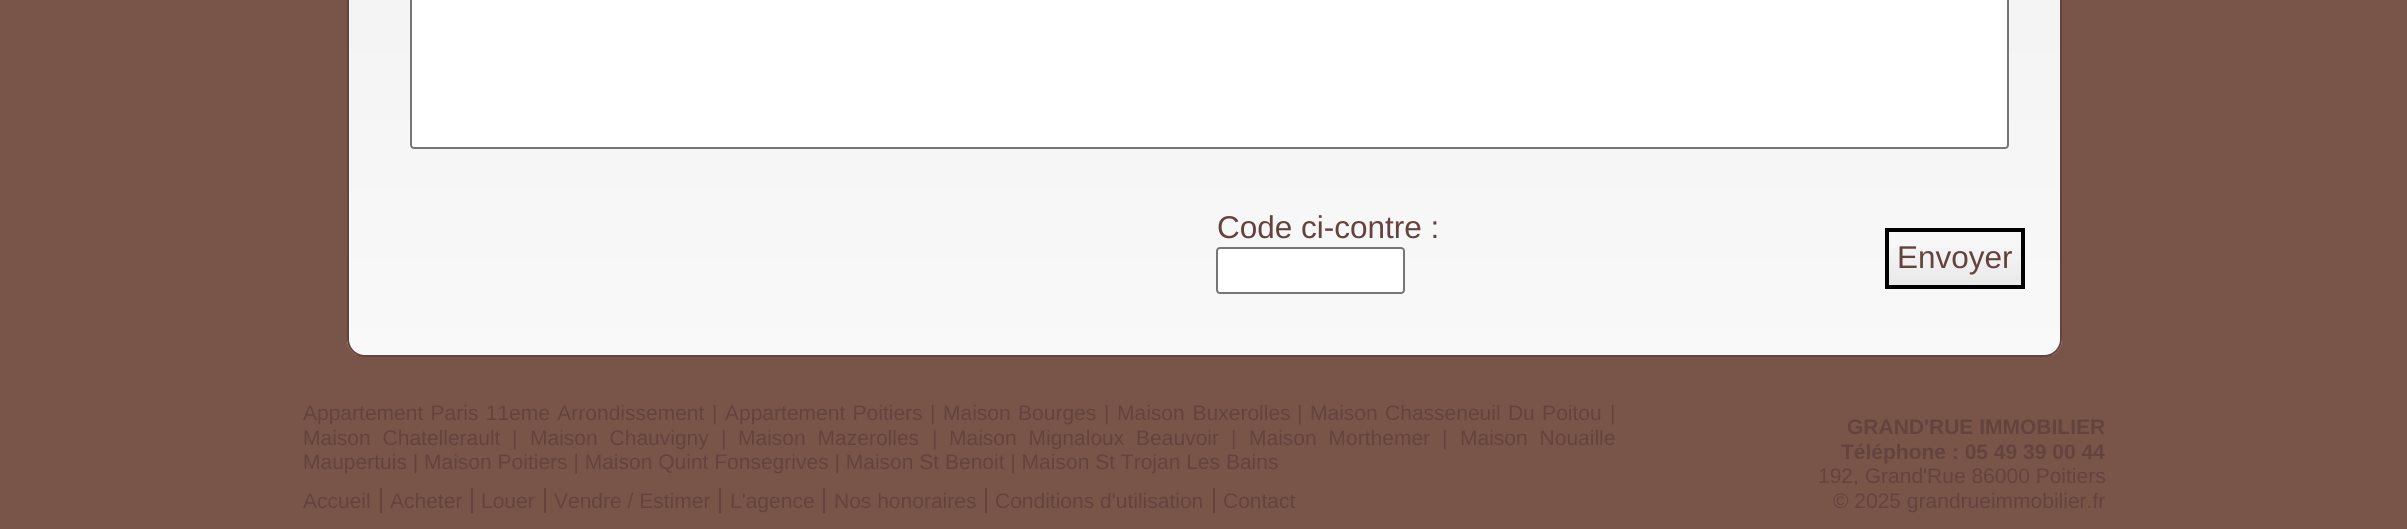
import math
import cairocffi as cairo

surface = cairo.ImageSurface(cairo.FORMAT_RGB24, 2407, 529)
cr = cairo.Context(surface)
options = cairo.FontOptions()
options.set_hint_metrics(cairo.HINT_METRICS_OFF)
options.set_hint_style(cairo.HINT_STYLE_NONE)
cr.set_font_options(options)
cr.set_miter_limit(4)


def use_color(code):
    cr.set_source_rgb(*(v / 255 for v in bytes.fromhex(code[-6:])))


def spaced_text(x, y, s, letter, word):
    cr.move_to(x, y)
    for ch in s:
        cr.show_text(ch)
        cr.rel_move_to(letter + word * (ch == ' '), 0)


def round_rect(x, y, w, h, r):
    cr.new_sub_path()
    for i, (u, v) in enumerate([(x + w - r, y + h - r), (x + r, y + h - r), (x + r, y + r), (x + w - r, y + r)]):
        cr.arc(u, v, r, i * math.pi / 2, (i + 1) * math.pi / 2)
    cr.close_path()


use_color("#795549")
cr.paint()
cr.save()
cr.new_path()
cr.move_to(365, -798)
cr.line_to(2062, -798)
cr.line_to(2062, 339)
cr.curve_to(2062, 349, 2054, 357, 2044, 357)
cr.line_to(365, 357)
cr.curve_to(355, 357, 347, 349, 347, 339)
cr.line_to(347, -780)
cr.curve_to(347, -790, 355, -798, 365, -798)
cr.close_path()
cr.clip()
gradient = cairo.LinearGradient(1204, -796, 1204, 355)
gradient.add_color_stop_rgba(0.05, 0.914, 0.914, 0.914, 1)
gradient.add_color_stop_rgba(1, 0.976, 0.976, 0.976, 1)
cr.set_source(gradient)
cr.rectangle(347, 0, 1715, 355)
cr.fill()
cr.restore()
cr.new_path()
cr.move_to(365, -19)
cr.line_to(2061, -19)
cr.line_to(2061, 339)
cr.curve_to(2061, 348.5, 2053.5, 356, 2044, 356)
cr.line_to(365, 356)
cr.curve_to(355.5, 356, 348, 348.5, 348, 339)
cr.line_to(348, -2)
cr.curve_to(348, -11.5, 355.5, -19, 365, -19)
cr.close_path()
use_color("#64433e")
cr.stroke()
use_color("#ffffff")
round_rect(411, -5, 1597, 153, 3)
cr.fill_preserve()
use_color("#767676")
cr.stroke()
cr.select_font_face("Liberation Sans")
cr.set_font_size(31.5)
use_color("#64433e")
cr.move_to(1217, 238)
cr.show_text("Code ci-contre :")
use_color("#ffffff")
round_rect(1217, 248, 187, 45, 3)
cr.fill_preserve()
use_color("#767676")
cr.stroke()
gradient = cairo.LinearGradient(1955, 231, 1955, 285)
gradient.add_color_stop_rgba(0.05, 0.976, 0.976, 0.976, 1)
gradient.add_color_stop_rgba(1, 0.914, 0.914, 0.914, 1)
cr.set_source(gradient)
cr.rectangle(1889, 248, 132, 37)
cr.fill()
cr.rectangle(1887, 230, 136, 57)
use_color("#000000")
cr.set_line_width(4)
cr.stroke()
use_color("#64433e")
cr.move_to(1897, 268)
cr.show_text("Envoyer")
cr.set_font_size(21)
spaced_text(303, 420, "Appartement Paris 11eme Arrondissement", 0, 1.5)
cr.move_to(712, 420)
cr.show_text("|")
spaced_text(725, 420, "Appartement Poitiers", 0, 1.5)
cr.move_to(930, 420)
cr.show_text("|")
spaced_text(943, 420, "Maison Bourges", 0, 1.5)
cr.move_to(1104, 420)
cr.show_text("|")
spaced_text(1117, 420, "Maison Buxerolles", 0, 2)
cr.move_to(1297, 420)
cr.show_text("|")
spaced_text(1310, 420, "Maison Chasseneuil Du Poitou", 0, 1.5)
cr.move_to(1610, 420)
cr.show_text("|")
spaced_text(303, 445, "Maison Chatellerault", 0, 6)
cr.move_to(512, 445)
cr.show_text("|")
spaced_text(530, 445, "Maison Chauvigny", 0, 6)
cr.move_to(721, 445)
cr.show_text("|")
spaced_text(738, 445, "Maison Mazerolles", 0, 6)
cr.move_to(932, 445)
cr.show_text("|")
spaced_text(949, 445, "Maison Mignaloux Beauvoir", 0, 6)
cr.move_to(1231, 445)
cr.show_text("|")
spaced_text(1249, 445, "Maison Morthemer", 0, 6)
cr.move_to(1442, 445)
cr.show_text("|")
spaced_text(1460, 445, "Maison Nouaille", 0, 6)
cr.move_to(303, 469)
cr.show_text("Maupertuis | Maison Poitiers | Maison Quint Fonsegrives | Maison St Benoit | Maison St Trojan Les Bains")
cr.move_to(303, 508)
cr.show_text("Accueil")
cr.rectangle(380, 488, 2, 25)
cr.fill()
cr.move_to(390, 508)
cr.show_text("Acheter")
cr.rectangle(471, 488, 2, 25)
cr.fill()
cr.move_to(481, 508)
cr.show_text("Louer")
cr.rectangle(544, 488, 2, 25)
cr.fill()
cr.move_to(554, 508)
cr.show_text("Vendre / Estimer")
cr.rectangle(719, 488, 2, 25)
cr.fill()
cr.move_to(730, 508)
cr.show_text("L'agence")
cr.rectangle(823, 488, 2, 25)
cr.fill()
cr.move_to(834, 508)
cr.show_text("Nos honoraires")
cr.rectangle(985, 488, 2, 25)
cr.fill()
cr.move_to(995, 508)
cr.show_text("Conditions d'utilisation")
cr.rectangle(1213, 488, 2, 25)
cr.fill()
cr.move_to(1223, 508)
cr.show_text("Contact")
cr.select_font_face("Liberation Sans", cairo.FONT_SLANT_NORMAL, cairo.FONT_WEIGHT_BOLD)
cr.move_to(1847, 434)
cr.show_text("GRAND'RUE IMMOBILIER")
cr.move_to(1841, 459)
cr.show_text("Téléphone : 05 49 39 00 44")
cr.select_font_face("Liberation Sans")
cr.move_to(1818, 483)
cr.show_text("192, Grand'Rue 86000 Poitiers")
cr.move_to(1833, 508)
cr.show_text("© 2025 grandrueimmobilier.fr")
surface.write_to_png("result.png")
